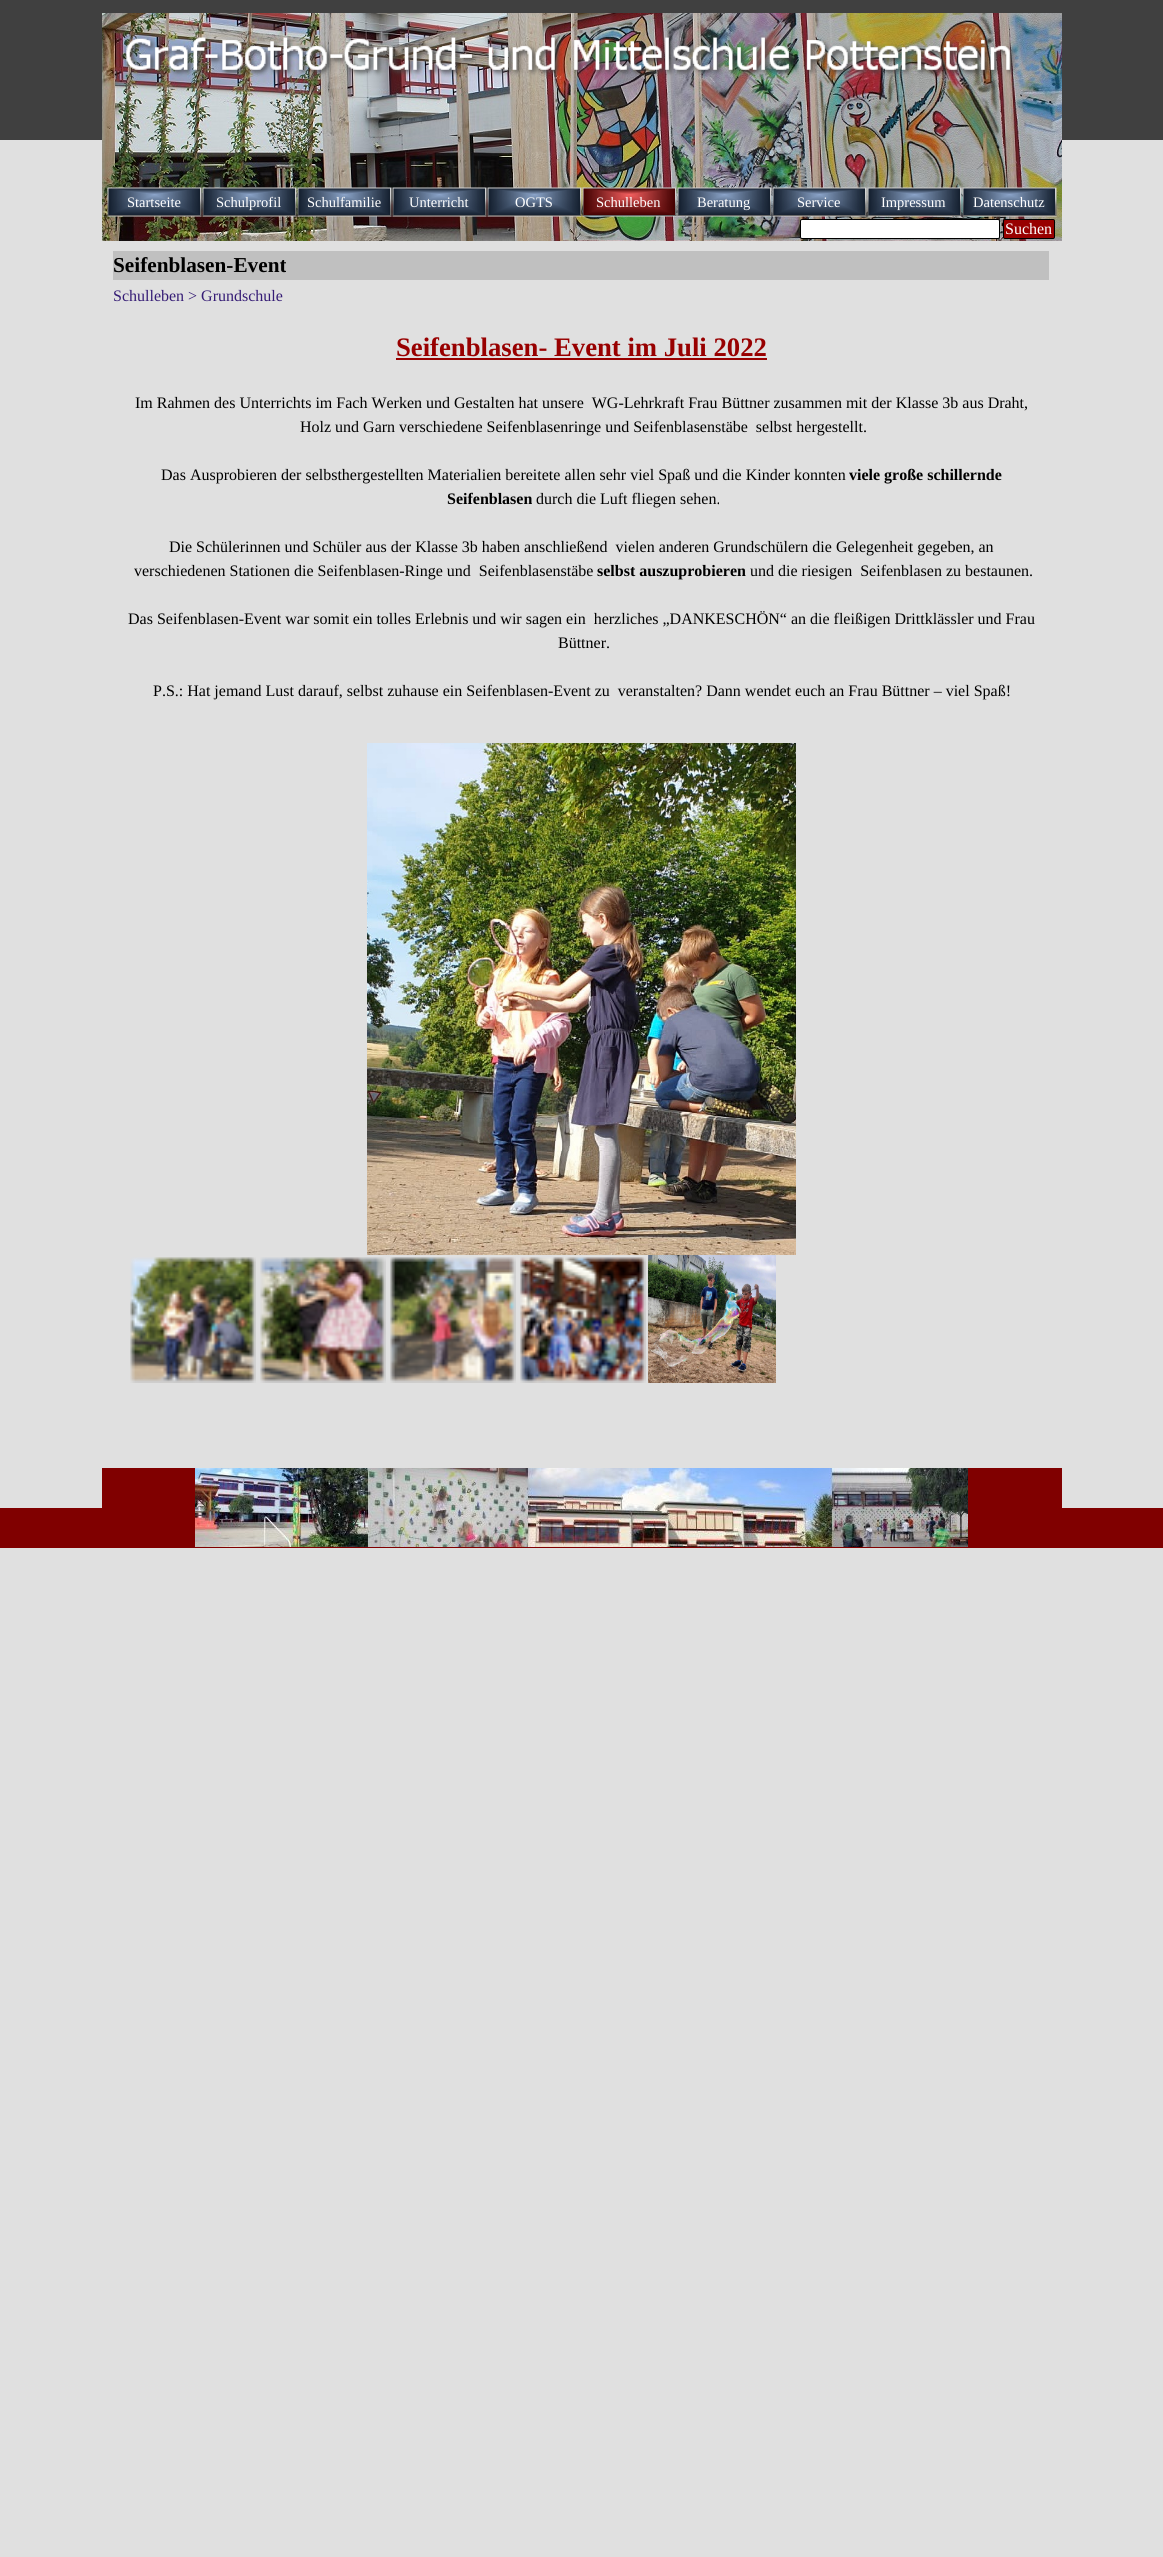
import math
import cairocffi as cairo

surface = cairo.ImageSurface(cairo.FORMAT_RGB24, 1163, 2557)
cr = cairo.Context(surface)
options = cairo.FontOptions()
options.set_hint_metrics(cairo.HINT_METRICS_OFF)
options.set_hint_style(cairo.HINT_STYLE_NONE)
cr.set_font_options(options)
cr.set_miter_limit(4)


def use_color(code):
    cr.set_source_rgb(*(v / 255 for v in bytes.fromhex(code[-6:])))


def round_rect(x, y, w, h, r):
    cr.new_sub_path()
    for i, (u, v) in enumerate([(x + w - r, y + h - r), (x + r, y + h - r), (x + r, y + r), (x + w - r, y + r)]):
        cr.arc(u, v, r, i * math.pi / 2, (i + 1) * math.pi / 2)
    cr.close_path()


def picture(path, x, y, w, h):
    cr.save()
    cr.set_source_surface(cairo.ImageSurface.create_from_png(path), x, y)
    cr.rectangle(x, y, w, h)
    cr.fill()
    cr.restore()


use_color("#e0e0e0")
cr.paint()
use_color("#404040")
cr.rectangle(0, 0, 1163, 140)
cr.fill()
picture("img1.png", 102, 13, 960, 228)
picture("img2.png", 125, 36, 892, 41)
picture("img3.png", 107, 187, 95, 30)
cr.select_font_face("Liberation Serif")
cr.set_font_size(14.5)
use_color("#ffffff")
cr.move_to(127, 207)
cr.show_text("Startseite")
picture("img4.png", 202, 187, 95, 30)
cr.move_to(216, 207)
cr.show_text("Schulprofil")
picture("img5.png", 297, 187, 95, 30)
cr.move_to(307, 207)
cr.show_text("Schulfamilie")
picture("img6.png", 392, 187, 95, 30)
cr.move_to(409, 207)
cr.show_text("Unterricht")
picture("img7.png", 487, 187, 95, 30)
cr.move_to(515, 207)
cr.show_text("OGTS")
picture("img8.png", 582, 187, 95, 30)
cr.move_to(596, 207)
cr.show_text("Schulleben")
picture("img9.png", 677, 187, 95, 30)
cr.move_to(697, 207)
cr.show_text("Beratung")
picture("img10.png", 772, 187, 95, 30)
cr.move_to(797, 207)
cr.show_text("Service")
picture("img11.png", 867, 187, 95, 30)
cr.move_to(881, 207)
cr.show_text("Impressum")
picture("img12.png", 962, 187, 95, 30)
cr.move_to(973, 207)
cr.show_text("Datenschutz")
round_rect(800.5, 219.5, 199, 19, 1.5)
cr.fill_preserve()
use_color("#000000")
cr.set_line_width(1)
cr.stroke()
use_color("#980000")
round_rect(1003.5, 219.5, 51, 19, 1.5)
cr.fill_preserve()
use_color("#000000")
cr.stroke()
cr.set_font_size(16)
use_color("#ffffff")
cr.move_to(1005, 234)
cr.show_text("Suchen")
use_color("#c0c0c0")
cr.rectangle(113, 251, 936, 29)
cr.fill()
cr.select_font_face("Liberation Serif", cairo.FONT_SLANT_NORMAL, cairo.FONT_WEIGHT_BOLD)
cr.set_font_size(21.25)
use_color("#000000")
cr.move_to(113, 272)
cr.show_text("Seifenblasen-Event")
cr.select_font_face("Liberation Serif")
cr.set_font_size(16)
use_color("#351c75")
cr.move_to(113, 301)
cr.show_text("Schulleben > Grundschule")
cr.select_font_face("Liberation Serif", cairo.FONT_SLANT_NORMAL, cairo.FONT_WEIGHT_BOLD)
cr.set_font_size(26.7)
use_color("#980000")
cr.move_to(396, 356)
cr.show_text("Seifenblasen- Event im Juli 2022")
cr.rectangle(396, 358, 371, 2)
cr.fill()
cr.select_font_face("Liberation Serif")
cr.set_font_size(16)
use_color("#000000")
cr.move_to(135, 408)
cr.show_text("Im Rahmen des Unterrichts im Fach Werken und Gestalten hat unsere  WG-Lehrkraft Frau Büttner zusammen mit der Klasse 3b aus Draht,")
cr.move_to(300, 432)
cr.show_text("Holz und Garn verschiedene Seifenblasenringe und Seifenblasenstäbe  selbst hergestellt.")
cr.move_to(161, 480)
cr.show_text("Das Ausprobieren der selbsthergestellten Materialien bereitete allen sehr viel Spaß und die Kinder konnten")
cr.select_font_face("Liberation Serif", cairo.FONT_SLANT_NORMAL, cairo.FONT_WEIGHT_BOLD)
cr.move_to(849, 480)
cr.show_text("viele große schillernde")
cr.move_to(447, 504)
cr.show_text("Seifenblasen")
cr.select_font_face("Liberation Serif")
cr.move_to(536, 504)
cr.show_text("durch die Luft fliegen sehen.")
cr.move_to(169, 552)
cr.show_text("Die Schülerinnen und Schüler aus der Klasse 3b haben anschließend  vielen anderen Grundschülern die Gelegenheit gegeben, an")
cr.move_to(134, 576)
cr.show_text("verschiedenen Stationen die Seifenblasen-Ringe und  Seifenblasenstäbe")
cr.select_font_face("Liberation Serif", cairo.FONT_SLANT_NORMAL, cairo.FONT_WEIGHT_BOLD)
cr.move_to(597, 576)
cr.show_text("selbst auszuprobieren")
cr.select_font_face("Liberation Serif")
cr.move_to(750, 576)
cr.show_text("und die riesigen  Seifenblasen zu bestaunen.")
cr.move_to(128, 624)
cr.show_text("Das Seifenblasen-Event war somit ein tolles Erlebnis und wir sagen ein  herzliches „DANKESCHÖN“ an die fleißigen Drittklässler und Frau")
cr.move_to(558, 648)
cr.show_text("Büttner.")
cr.move_to(153, 696)
cr.show_text("P.S.: Hat jemand Lust darauf, selbst zuhause ein Seifenblasen-Event zu  veranstalten? Dann wendet euch an Frau Büttner – viel Spaß!")
picture("img13.png", 367, 743, 429, 512)
picture("img14.png", 130, 1257, 126, 126)
picture("img15.png", 260, 1257, 126, 126)
picture("img16.png", 390, 1257, 126, 126)
picture("img17.png", 520, 1257, 126, 126)
picture("img18.png", 648, 1255, 128, 128)
use_color("#800000")
cr.rectangle(102, 1468, 960, 40)
cr.fill()
cr.rectangle(0, 1508, 1163, 40)
cr.fill()
picture("img19.png", 195, 1468, 773, 79)
surface.write_to_png("result.png")
